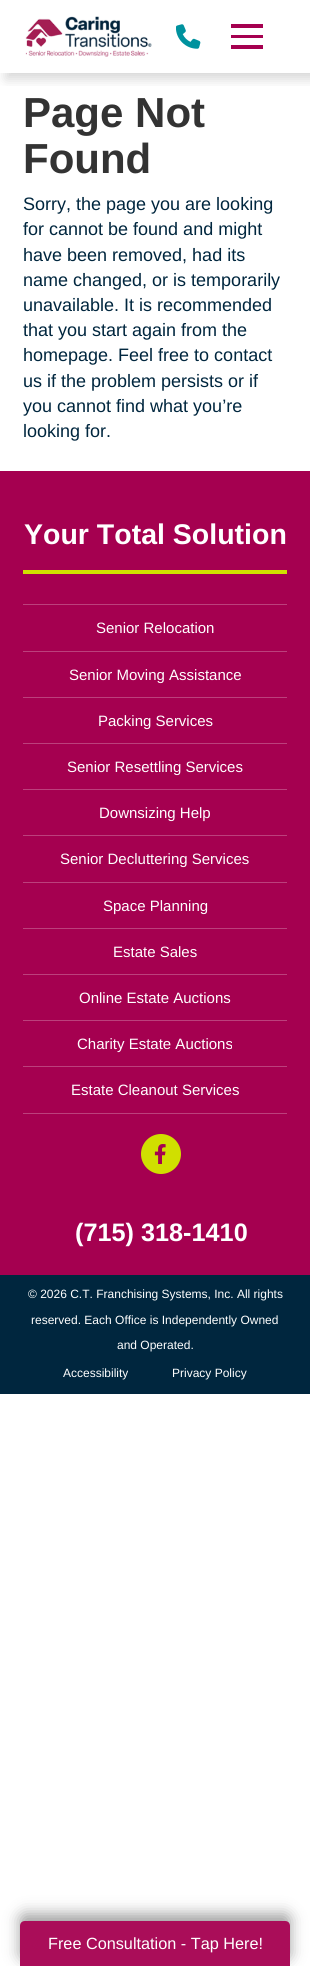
import math
import cairocffi as cairo

surface = cairo.ImageSurface(cairo.FORMAT_RGB24, 310, 1966)
cr = cairo.Context(surface)
options = cairo.FontOptions()
options.set_hint_metrics(cairo.HINT_METRICS_OFF)
options.set_hint_style(cairo.HINT_STYLE_NONE)
cr.set_font_options(options)
cr.set_miter_limit(4)


def use_color(code):
    cr.set_source_rgb(*(v / 255 for v in bytes.fromhex(code[-6:])))


def round_rect(x, y, w, h, r):
    cr.new_sub_path()
    for i, (u, v) in enumerate([(x + w - r, y + h - r), (x + r, y + h - r), (x + r, y + r), (x + w - r, y + r)]):
        cr.arc(u, v, r, i * math.pi / 2, (i + 1) * math.pi / 2)
    cr.close_path()


def shadow(x, y, w, h, r, blur, alpha):
    cr.push_group_with_content(cairo.CONTENT_ALPHA)
    cr.set_operator(cairo.OPERATOR_SOURCE)
    for i in range(15, -16, -2):
        e = blur * i / 6
        if min(w, h) + 2 * e > 0:
            cr.set_source_rgba(0, 0, 0, alpha * math.erfc((i - 1) / 8.5) / 2)
            round_rect(x - e, y - e, w + 2 * e, h + 2 * e, max(0, min(r + e + blur * .6, min(w, h) / 2 + e)))
            cr.fill()
    cr.mask(cr.pop_group())


def picture(path, x, y, w, h):
    cr.save()
    cr.set_source_surface(cairo.ImageSurface.create_from_png(path), x, y)
    cr.rectangle(x, y, w, h)
    cr.fill()
    cr.restore()


use_color("#ffffff")
cr.paint()
cr.save()
cr.rectangle(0, 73, 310, 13)
cr.clip()
use_color("#000000")
shadow(6, 6, 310, 73, 0, 6, 0.16)
cr.restore()
picture("img1.png", 25, 16, 127, 41)
picture("img2.png", 176, 24, 25, 25)
use_color("#a50050")
cr.rectangle(231, 24, 32, 4)
cr.fill()
cr.rectangle(231, 35, 32, 3)
cr.fill()
cr.rectangle(231, 45, 32, 4)
cr.fill()
cr.select_font_face("Liberation Sans", cairo.FONT_SLANT_NORMAL, cairo.FONT_WEIGHT_BOLD)
cr.set_font_size(42)
use_color("#333333")
cr.move_to(23, 127)
cr.show_text("Page Not")
cr.move_to(23, 173)
cr.show_text("Found")
cr.select_font_face("Liberation Sans")
cr.set_font_size(18)
use_color("#00263e")
cr.move_to(23, 210)
cr.show_text("Sorry, the page you are looking")
cr.move_to(23, 235)
cr.show_text("for cannot be found and might")
cr.move_to(23, 261)
cr.show_text("have been removed, had its")
cr.move_to(23, 286)
cr.show_text("name changed, or is temporarily")
cr.move_to(23, 311)
cr.show_text("unavailable. It is recommended")
cr.move_to(23, 336)
cr.show_text("that you start again from the")
cr.move_to(23, 361)
cr.show_text("homepage. Feel free to contact")
cr.move_to(23, 387)
cr.show_text("us if the problem persists or if")
cr.move_to(23, 412)
cr.show_text("you cannot find what you’re")
cr.move_to(23, 437)
cr.show_text("looking for.")
use_color("#a50050")
cr.rectangle(0, 471, 310, 804)
cr.fill()
use_color("#d0df00")
cr.rectangle(23, 570, 264, 4)
cr.fill()
cr.select_font_face("Liberation Sans", cairo.FONT_SLANT_NORMAL, cairo.FONT_WEIGHT_BOLD)
cr.set_font_size(28.5)
use_color("#ffffff")
cr.move_to(24, 544)
cr.show_text("Your Total Solution")
use_color("#bc407c")
cr.rectangle(23, 604, 264, 1)
cr.fill()
cr.rectangle(23, 651, 264, 1)
cr.fill()
cr.select_font_face("Liberation Sans")
cr.set_font_size(15)
use_color("#ffffff")
cr.move_to(96, 633)
cr.show_text("Senior Relocation")
use_color("#bc407c")
cr.rectangle(23, 697, 264, 1)
cr.fill()
use_color("#ffffff")
cr.move_to(69, 680)
cr.show_text("Senior Moving Assistance")
use_color("#bc407c")
cr.rectangle(23, 743, 264, 1)
cr.fill()
use_color("#ffffff")
cr.move_to(98, 726)
cr.show_text("Packing Services")
use_color("#bc407c")
cr.rectangle(23, 789, 264, 1)
cr.fill()
use_color("#ffffff")
cr.move_to(67, 772)
cr.show_text("Senior Resettling Services")
use_color("#bc407c")
cr.rectangle(23, 835, 264, 1)
cr.fill()
use_color("#ffffff")
cr.move_to(99, 818)
cr.show_text("Downsizing Help")
use_color("#bc407c")
cr.rectangle(23, 882, 264, 1)
cr.fill()
use_color("#ffffff")
cr.move_to(60, 864)
cr.show_text("Senior Decluttering Services")
use_color("#bc407c")
cr.rectangle(23, 928, 264, 1)
cr.fill()
use_color("#ffffff")
cr.move_to(103, 911)
cr.show_text("Space Planning")
use_color("#bc407c")
cr.rectangle(23, 974, 264, 1)
cr.fill()
use_color("#ffffff")
cr.move_to(113, 957)
cr.show_text("Estate Sales")
use_color("#bc407c")
cr.rectangle(23, 1020, 264, 1)
cr.fill()
use_color("#ffffff")
cr.move_to(79, 1003)
cr.show_text("Online Estate Auctions")
use_color("#bc407c")
cr.rectangle(23, 1066, 264, 1)
cr.fill()
use_color("#ffffff")
cr.move_to(77, 1049)
cr.show_text("Charity Estate Auctions")
use_color("#bc407c")
cr.rectangle(23, 1113, 264, 1)
cr.fill()
use_color("#ffffff")
cr.move_to(71, 1095)
cr.show_text("Estate Cleanout Services")
use_color("#d0df00")
cr.new_path()
cr.arc(161, 1154, 20, 0, 2 * math.pi)
cr.fill()
picture("img3.png", 154, 1144, 12, 20)
cr.select_font_face("Liberation Sans", cairo.FONT_SLANT_NORMAL, cairo.FONT_WEIGHT_BOLD)
cr.set_font_size(25.25)
use_color("#ffffff")
cr.move_to(75, 1241)
cr.show_text("(715) 318-1410")
use_color("#00263e")
cr.rectangle(0, 1275, 310, 119)
cr.fill()
cr.select_font_face("Liberation Sans")
cr.set_font_size(12)
use_color("#ffffff")
cr.move_to(28, 1298)
cr.show_text("© 2026 C.T. Franchising Systems, Inc. All rights")
cr.move_to(31, 1324)
cr.show_text("reserved. Each Office is Independently Owned")
cr.move_to(117, 1349)
cr.show_text("and Operated.")
cr.move_to(63, 1377)
cr.show_text("Accessibility")
cr.move_to(172, 1377)
cr.show_text("Privacy Policy")
use_color("#0d0d0d")
shadow(20, 1914, 270, 45, 5, 7.5, 0.4)
use_color("#aa0d59")
cr.new_path()
cr.move_to(25, 1921)
cr.line_to(285, 1921)
cr.curve_to(288, 1921, 290, 1923, 290, 1926)
cr.line_to(290, 1966)
cr.line_to(20, 1966)
cr.line_to(20, 1926)
cr.curve_to(20, 1923, 22, 1921, 25, 1921)
cr.close_path()
cr.fill()
cr.set_font_size(16.25)
use_color("#ffffff")
cr.move_to(48, 1949)
cr.show_text("Free Consultation - Tap Here!")
surface.write_to_png("result.png")
